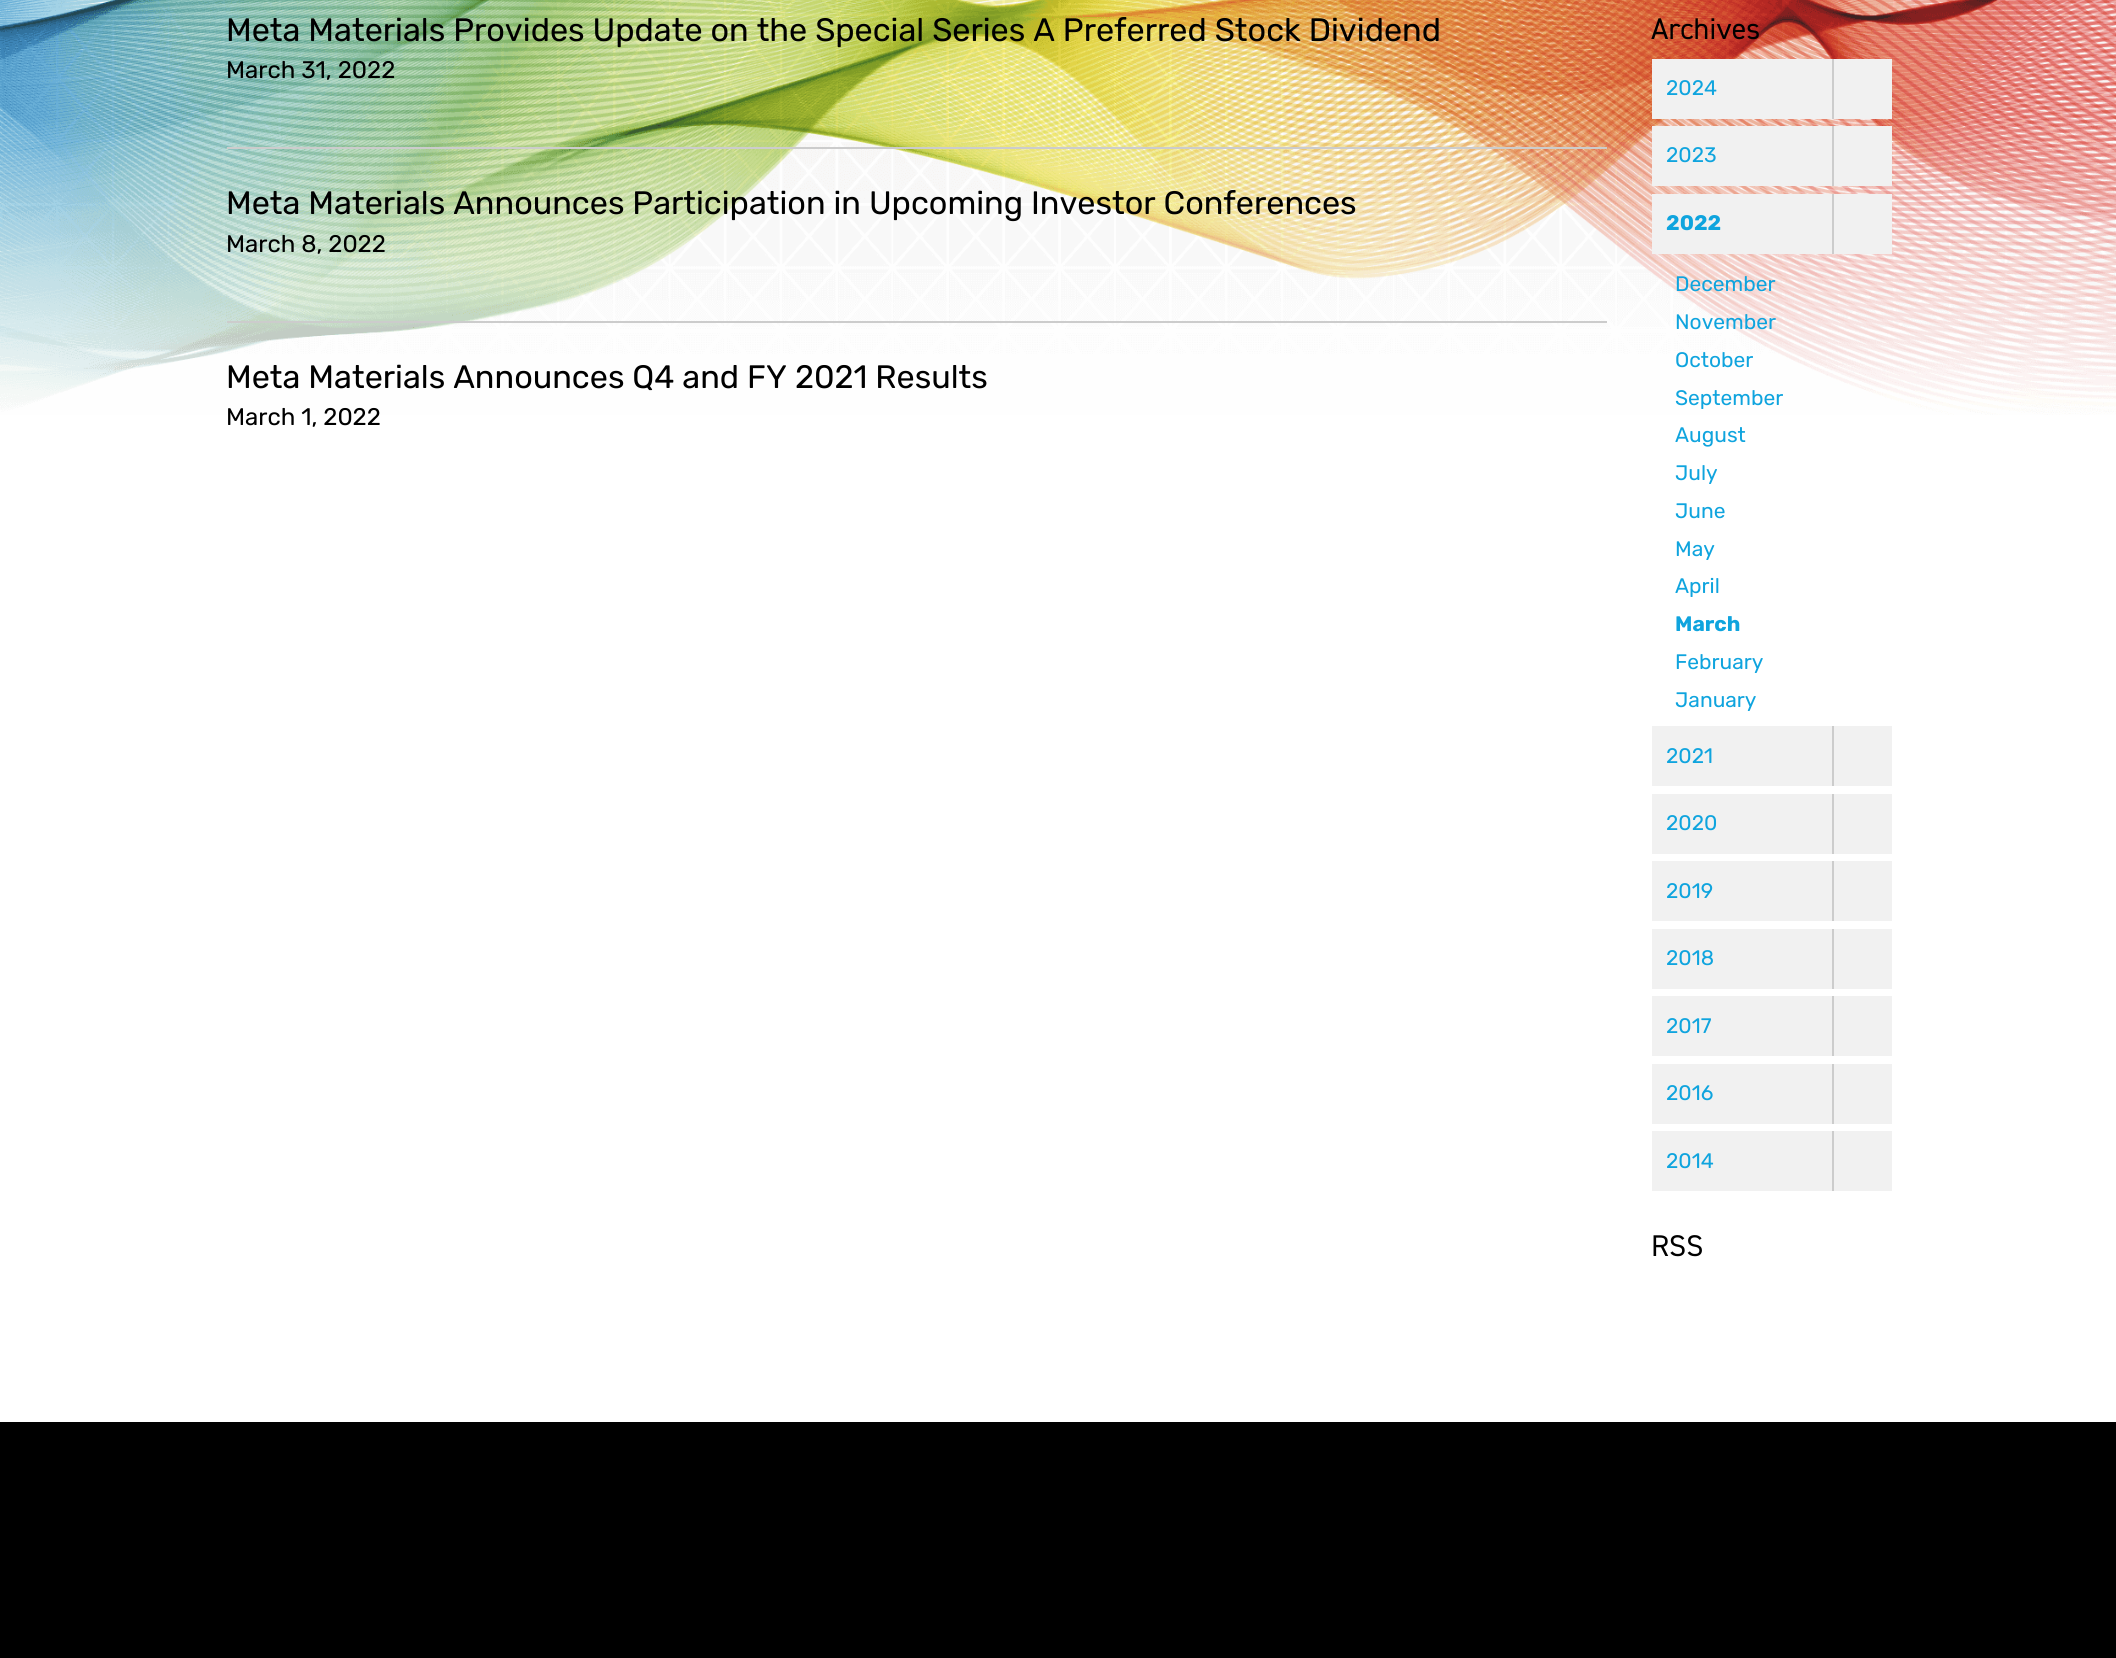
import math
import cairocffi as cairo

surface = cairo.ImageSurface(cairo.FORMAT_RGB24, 2116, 1658)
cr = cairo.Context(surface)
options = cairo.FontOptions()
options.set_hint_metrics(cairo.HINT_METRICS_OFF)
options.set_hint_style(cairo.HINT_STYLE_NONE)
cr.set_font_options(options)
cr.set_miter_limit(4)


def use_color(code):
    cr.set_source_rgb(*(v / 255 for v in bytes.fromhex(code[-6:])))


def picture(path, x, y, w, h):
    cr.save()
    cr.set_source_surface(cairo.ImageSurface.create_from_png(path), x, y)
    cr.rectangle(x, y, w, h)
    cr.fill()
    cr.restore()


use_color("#ffffff")
cr.paint()
picture("img1.png", 0, 0, 2116, 415)
use_color("#cccccc")
cr.rectangle(227, 147, 1380, 2)
cr.fill()
cr.select_font_face("Rubik")
cr.set_font_size(32.4)
use_color("#000000")
cr.move_to(226, 41)
cr.show_text("Meta Materials Provides Update on the Special Series A Preferred Stock Dividend")
cr.set_font_size(24)
cr.move_to(226, 78)
cr.show_text("March 31, 2022")
use_color("#cccccc")
cr.rectangle(227, 321, 1380, 2)
cr.fill()
cr.set_font_size(32.4)
use_color("#000000")
cr.move_to(226, 214)
cr.show_text("Meta Materials Announces Participation in Upcoming Investor Conferences")
cr.set_font_size(24)
cr.move_to(226, 252)
cr.show_text("March 8, 2022")
cr.set_font_size(32.4)
cr.move_to(226, 388)
cr.show_text("Meta Materials Announces Q4 and FY 2021 Results")
cr.set_font_size(24)
cr.move_to(226, 425)
cr.show_text("March 1, 2022")
cr.select_font_face("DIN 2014")
cr.set_font_size(30)
cr.move_to(1651, 39)
cr.show_text("Archives")
use_color("#f1f1f1")
cr.rectangle(1652, 59, 240, 60)
cr.fill()
cr.select_font_face("Rubik")
cr.set_font_size(21)
use_color("#0fa4de")
cr.move_to(1666, 95)
cr.show_text("2024")
use_color("#cccccc")
cr.rectangle(1832, 59, 2, 60)
cr.fill()
use_color("#f1f1f1")
cr.rectangle(1652, 126, 240, 60)
cr.fill()
use_color("#0fa4de")
cr.move_to(1666, 162)
cr.show_text("2023")
use_color("#cccccc")
cr.rectangle(1832, 126, 2, 60)
cr.fill()
use_color("#f1f1f1")
cr.rectangle(1652, 194, 240, 60)
cr.fill()
cr.select_font_face("Rubik", cairo.FONT_SLANT_NORMAL, cairo.FONT_WEIGHT_BOLD)
use_color("#0fa4de")
cr.move_to(1666, 230)
cr.show_text("2022")
use_color("#cccccc")
cr.rectangle(1832, 194, 2, 60)
cr.fill()
cr.select_font_face("Rubik")
use_color("#0fa4de")
cr.move_to(1675, 291)
cr.show_text("December")
cr.move_to(1675, 329)
cr.show_text("November")
cr.move_to(1675, 367)
cr.show_text("October")
cr.move_to(1675, 405)
cr.show_text("September")
cr.move_to(1675, 442)
cr.show_text("August")
cr.move_to(1675, 480)
cr.show_text("July")
cr.move_to(1675, 518)
cr.show_text("June")
cr.move_to(1675, 556)
cr.show_text("May")
cr.move_to(1675, 593)
cr.show_text("April")
cr.select_font_face("Rubik", cairo.FONT_SLANT_NORMAL, cairo.FONT_WEIGHT_BOLD)
cr.move_to(1675, 631)
cr.show_text("March")
cr.select_font_face("Rubik")
cr.move_to(1675, 669)
cr.show_text("February")
cr.move_to(1675, 707)
cr.show_text("January")
use_color("#f1f1f1")
cr.rectangle(1652, 726, 240, 60)
cr.fill()
use_color("#0fa4de")
cr.move_to(1666, 763)
cr.show_text("2021")
use_color("#cccccc")
cr.rectangle(1832, 726, 2, 60)
cr.fill()
use_color("#f1f1f1")
cr.rectangle(1652, 794, 240, 60)
cr.fill()
use_color("#0fa4de")
cr.move_to(1666, 830)
cr.show_text("2020")
use_color("#cccccc")
cr.rectangle(1832, 794, 2, 60)
cr.fill()
use_color("#f1f1f1")
cr.rectangle(1652, 861, 240, 60)
cr.fill()
use_color("#0fa4de")
cr.move_to(1666, 898)
cr.show_text("2019")
use_color("#cccccc")
cr.rectangle(1832, 861, 2, 60)
cr.fill()
use_color("#f1f1f1")
cr.rectangle(1652, 929, 240, 60)
cr.fill()
use_color("#0fa4de")
cr.move_to(1666, 965)
cr.show_text("2018")
use_color("#cccccc")
cr.rectangle(1832, 929, 2, 60)
cr.fill()
use_color("#f1f1f1")
cr.rectangle(1652, 996, 240, 60)
cr.fill()
use_color("#0fa4de")
cr.move_to(1666, 1033)
cr.show_text("2017")
use_color("#cccccc")
cr.rectangle(1832, 996, 2, 60)
cr.fill()
use_color("#f1f1f1")
cr.rectangle(1652, 1064, 240, 60)
cr.fill()
use_color("#0fa4de")
cr.move_to(1666, 1100)
cr.show_text("2016")
use_color("#cccccc")
cr.rectangle(1832, 1064, 2, 60)
cr.fill()
use_color("#f1f1f1")
cr.rectangle(1652, 1131, 240, 60)
cr.fill()
use_color("#0fa4de")
cr.move_to(1666, 1168)
cr.show_text("2014")
use_color("#cccccc")
cr.rectangle(1832, 1131, 2, 60)
cr.fill()
cr.select_font_face("DIN 2014")
cr.set_font_size(30)
use_color("#000000")
cr.move_to(1651, 1256)
cr.show_text("RSS")
cr.rectangle(0, 1422, 2116, 236)
cr.fill()
surface.write_to_png("result.png")
